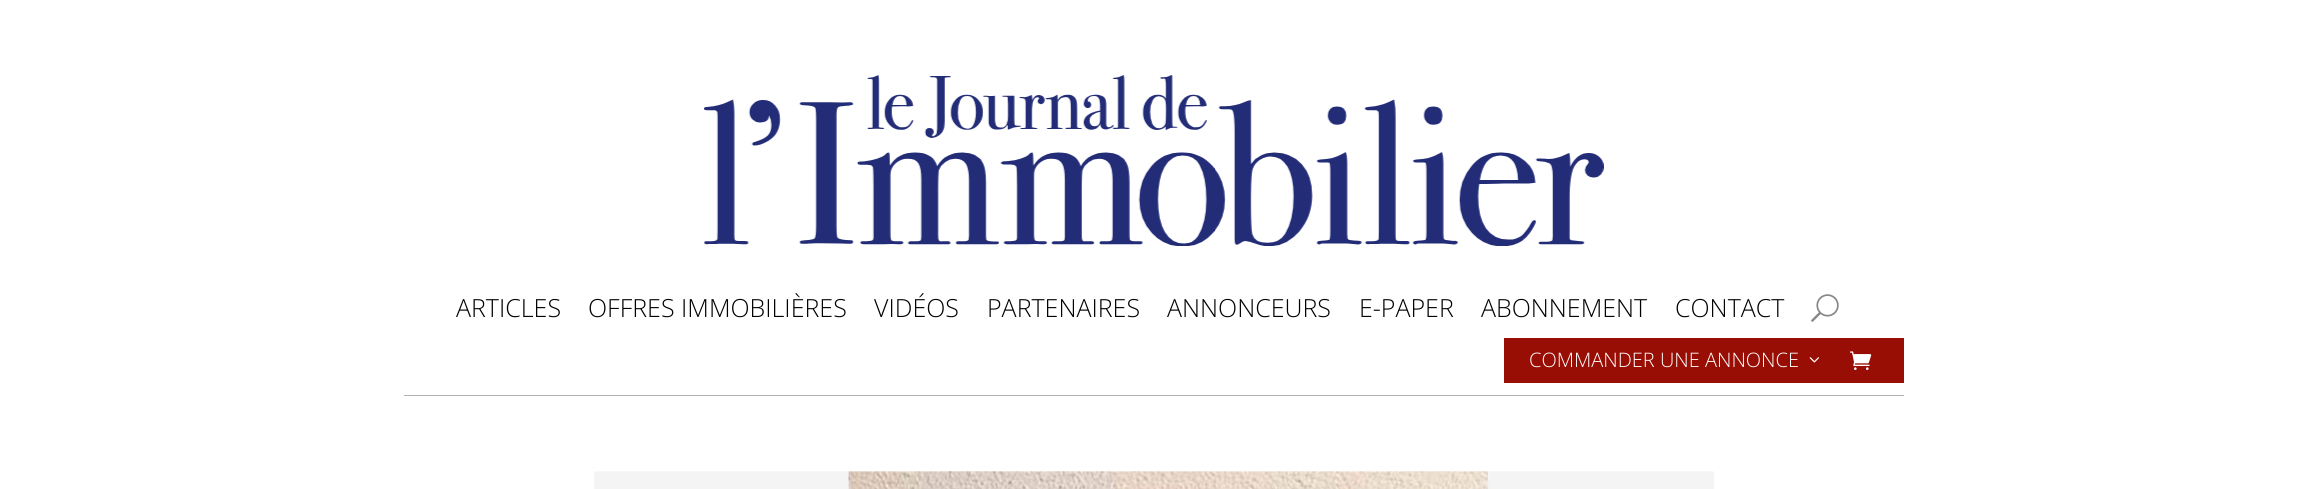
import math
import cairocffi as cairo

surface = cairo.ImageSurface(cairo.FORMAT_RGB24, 2307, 489)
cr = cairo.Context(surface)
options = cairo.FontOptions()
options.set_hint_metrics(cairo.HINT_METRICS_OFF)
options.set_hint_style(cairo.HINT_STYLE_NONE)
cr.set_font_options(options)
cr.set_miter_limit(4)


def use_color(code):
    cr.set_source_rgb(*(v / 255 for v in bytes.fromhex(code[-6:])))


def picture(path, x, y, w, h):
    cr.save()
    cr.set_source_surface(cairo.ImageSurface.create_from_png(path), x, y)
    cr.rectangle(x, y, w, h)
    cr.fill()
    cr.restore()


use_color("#ffffff")
cr.paint()
use_color("#b2b2b2")
cr.rectangle(404, 395, 1500, 1)
cr.fill()
picture("img1.png", 704, 75, 900, 171)
cr.select_font_face("Open Sans Light")
cr.set_font_size(25)
use_color("#000000")
cr.move_to(456, 317)
cr.show_text("ARTICLES")
cr.move_to(588, 317)
cr.show_text("OFFRES IMMOBILIÈRES")
cr.move_to(874, 317)
cr.show_text("VIDÉOS")
cr.move_to(987, 317)
cr.show_text("PARTENAIRES")
cr.move_to(1167, 317)
cr.show_text("ANNONCEURS")
cr.move_to(1359, 317)
cr.show_text("E-PAPER")
cr.move_to(1481, 317)
cr.show_text("ABONNEMENT")
cr.move_to(1675, 317)
cr.show_text("CONTACT")
picture("img2.png", 1811, 294, 28, 28)
use_color("#990e04")
cr.rectangle(1504, 338, 400, 45)
cr.fill()
cr.set_font_size(20)
use_color("#ffffff")
cr.move_to(1529, 367)
cr.show_text("COMMANDER UNE ANNONCE")
picture("img3.png", 1809, 357, 10, 6)
picture("img4.png", 1850, 351, 22, 19)
picture("img5.png", 594, 471, 1120, 18)
surface.write_to_png("result.png")
